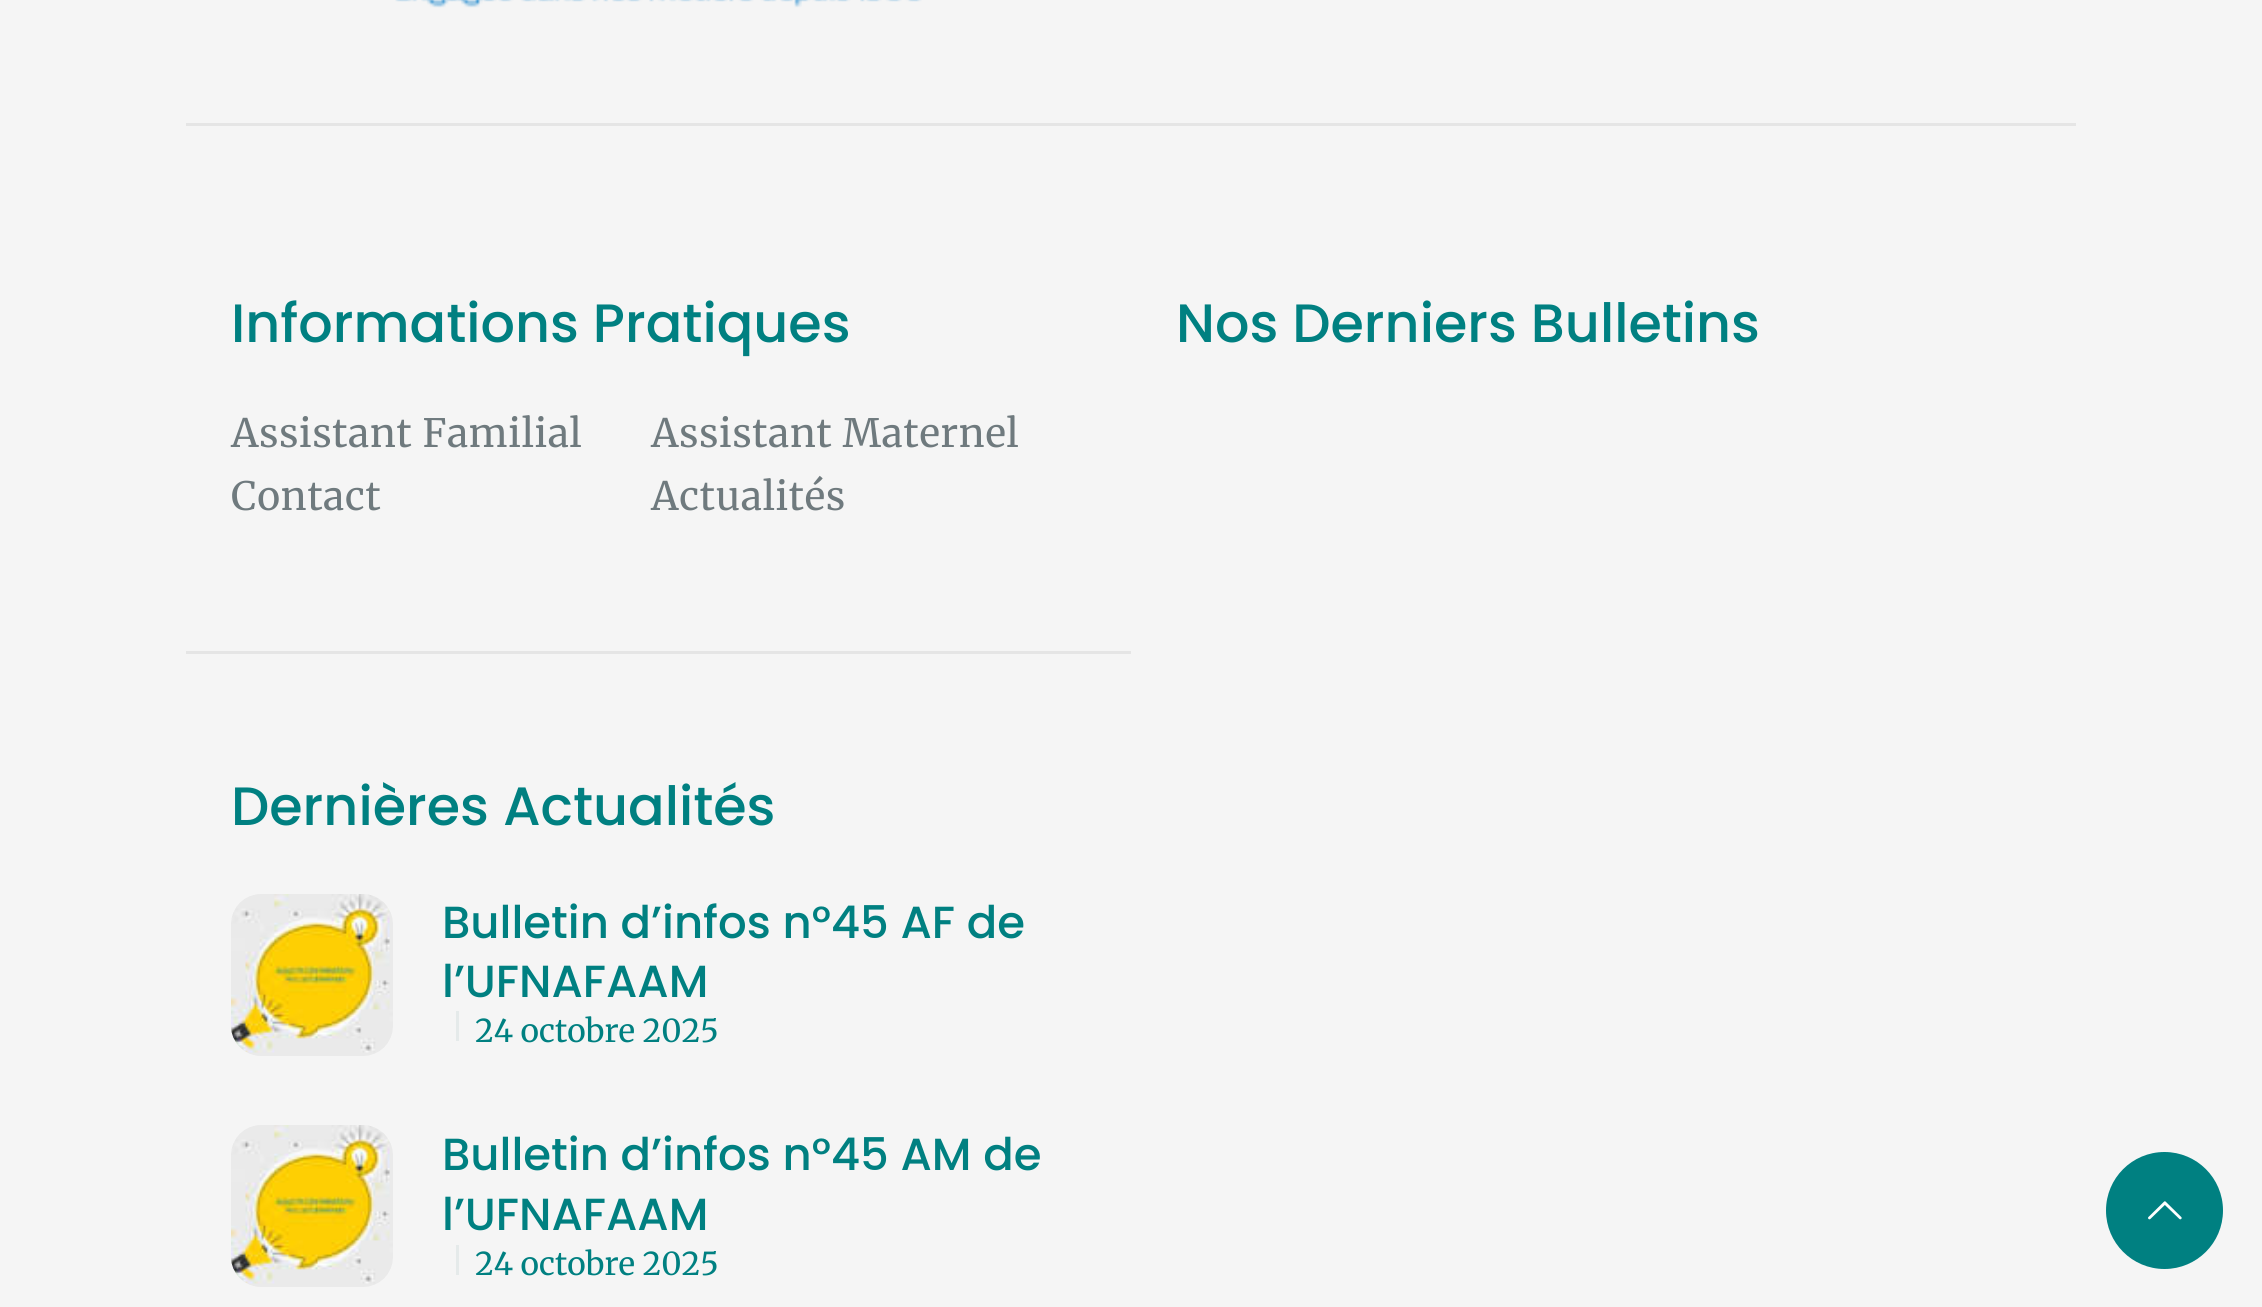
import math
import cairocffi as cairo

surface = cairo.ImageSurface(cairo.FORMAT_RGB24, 2262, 1307)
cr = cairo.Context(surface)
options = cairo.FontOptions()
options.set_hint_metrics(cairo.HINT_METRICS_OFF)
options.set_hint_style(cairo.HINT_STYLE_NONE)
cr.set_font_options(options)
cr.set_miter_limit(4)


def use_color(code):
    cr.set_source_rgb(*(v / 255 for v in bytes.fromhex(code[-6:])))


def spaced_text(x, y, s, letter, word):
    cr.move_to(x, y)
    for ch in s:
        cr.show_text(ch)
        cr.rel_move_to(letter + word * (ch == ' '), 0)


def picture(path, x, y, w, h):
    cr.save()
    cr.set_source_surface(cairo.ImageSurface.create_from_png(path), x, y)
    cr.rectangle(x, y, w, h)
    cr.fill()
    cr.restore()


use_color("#f5f5f5")
cr.paint()
use_color("#e5e5e5")
cr.rectangle(186, 123, 1890, 3)
cr.fill()
picture("img1.png", 395, 0, 527, 8)
cr.select_font_face("Poppins Medium")
cr.set_font_size(54)
use_color("#008081")
cr.move_to(231, 342)
cr.show_text("Informations Pratiques")
cr.select_font_face("Merriweather")
cr.set_font_size(39)
use_color("#6f7a7e")
spaced_text(231, 447, "Assistant Familial", 0.75, 0)
spaced_text(651, 447, "Assistant Maternel", 0.75, 0)
spaced_text(231, 510, "Contact", 0.75, 0)
spaced_text(651, 510, "Actualités", 0.75, 0)
cr.select_font_face("Poppins Medium")
cr.set_font_size(54)
use_color("#008081")
cr.move_to(1176, 342)
cr.show_text("Nos Derniers Bulletins")
use_color("#e5e5e5")
cr.rectangle(186, 651, 945, 3)
cr.fill()
use_color("#008081")
cr.move_to(231, 825)
cr.show_text("Dernières Actualités")
picture("img2.png", 231, 894, 162, 162)
cr.set_font_size(45)
cr.move_to(442, 938)
cr.show_text("Bulletin d’infos n°45 AF de")
cr.move_to(442, 997)
cr.show_text("l’UFNAFAAM")
use_color("#e5eaea")
cr.rectangle(456, 1011, 3, 30)
cr.fill()
cr.select_font_face("Merriweather")
cr.set_font_size(31.5)
use_color("#008081")
cr.move_to(475, 1042)
cr.show_text("24 octobre 2025")
picture("img3.png", 231, 1125, 162, 162)
cr.select_font_face("Poppins Medium")
cr.set_font_size(45)
cr.move_to(442, 1170)
cr.show_text("Bulletin d’infos n°45 AM de")
cr.move_to(442, 1230)
cr.show_text("l’UFNAFAAM")
use_color("#e5eaea")
cr.rectangle(456, 1245, 3, 30)
cr.fill()
cr.select_font_face("Merriweather")
cr.set_font_size(31.5)
use_color("#008081")
cr.move_to(475, 1275)
cr.show_text("24 octobre 2025")
cr.new_path()
cr.arc(2164.5, 1210.5, 58.5, 0, 2 * math.pi)
cr.fill()
picture("img4.png", 2148, 1201, 34, 19)
surface.write_to_png("result.png")
